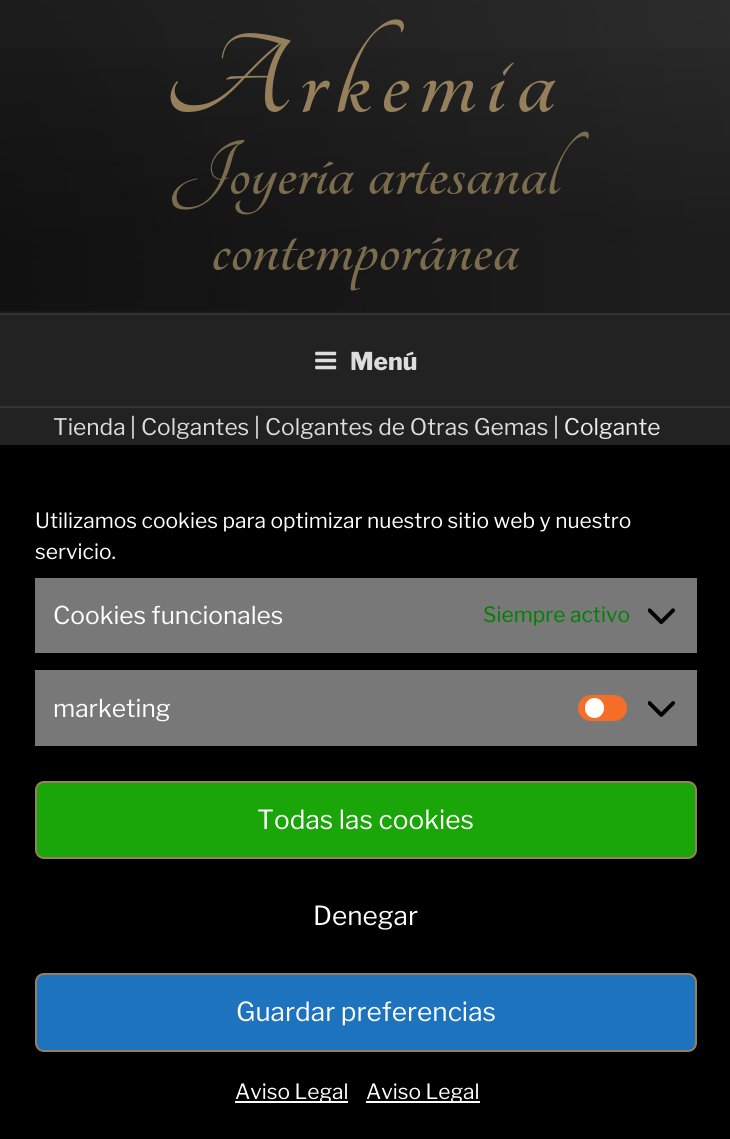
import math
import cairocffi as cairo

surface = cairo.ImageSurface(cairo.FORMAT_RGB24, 730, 1139)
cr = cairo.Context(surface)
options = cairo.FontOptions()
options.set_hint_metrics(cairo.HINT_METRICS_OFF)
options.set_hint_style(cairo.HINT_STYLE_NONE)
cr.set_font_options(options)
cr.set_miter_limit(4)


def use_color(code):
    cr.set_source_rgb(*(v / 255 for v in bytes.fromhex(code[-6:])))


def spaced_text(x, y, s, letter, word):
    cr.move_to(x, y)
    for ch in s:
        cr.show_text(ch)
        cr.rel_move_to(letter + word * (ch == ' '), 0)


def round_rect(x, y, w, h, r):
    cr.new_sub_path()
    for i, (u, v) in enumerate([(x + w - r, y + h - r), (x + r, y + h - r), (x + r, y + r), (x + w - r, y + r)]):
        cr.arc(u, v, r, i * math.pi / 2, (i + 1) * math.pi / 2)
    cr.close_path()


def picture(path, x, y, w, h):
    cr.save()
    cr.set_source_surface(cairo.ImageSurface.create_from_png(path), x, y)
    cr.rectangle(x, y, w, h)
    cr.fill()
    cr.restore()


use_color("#222222")
cr.paint()
use_color("#262626")
cr.rectangle(0, 311, 730, 2)
cr.fill()
picture("img1.png", 0, 0, 730, 312)
gradient = cairo.LinearGradient(366, 0, 366, 313)
gradient.add_color_stop_rgba(0, 0, 0, 0, 0)
gradient.add_color_stop_rgba(0.75, 0, 0, 0, 0.3)
gradient.add_color_stop_rgba(1, 0, 0, 0, 0.3)
cr.set_source(gradient)
cr.rectangle(0, 48, 730, 265)
cr.fill()
cr.select_font_face("Tangerine", cairo.FONT_SLANT_NORMAL, cairo.FONT_WEIGHT_BOLD)
cr.set_font_size(122.5)
use_color("#95805b")
spaced_text(165, 112, "Arkemia", 9.75, 0)
cr.set_font_size(84)
use_color("#7c6c4e")
cr.move_to(172, 194)
cr.show_text("Joyería artesanal")
cr.move_to(211, 270)
cr.show_text("contemporánea")
use_color("#333333")
cr.rectangle(0, 313, 730, 2)
cr.fill()
cr.rectangle(0, 406, 730, 2)
cr.fill()
picture("img2.png", 315, 351, 22, 19)
cr.select_font_face("Libre Franklin Thin")
cr.set_font_size(24.5)
use_color("#dddddd")
cr.move_to(350, 370)
cr.show_text("Menú")
cr.select_font_face("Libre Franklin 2 Thin")
cr.set_font_size(22.75)
cr.move_to(53, 435)
cr.show_text("Tienda")
use_color("#eeeeee")
cr.move_to(130, 435)
cr.show_text("|")
use_color("#dddddd")
cr.move_to(141, 435)
cr.show_text("Colgantes")
use_color("#eeeeee")
cr.move_to(254, 435)
cr.show_text("|")
use_color("#dddddd")
cr.move_to(265, 435)
cr.show_text("Colgantes de Otras Gemas")
use_color("#eeeeee")
cr.move_to(553, 435)
cr.show_text("| Colgante")
use_color("#000000")
cr.rectangle(0, 445, 730, 694)
cr.fill()
cr.set_font_size(21)
use_color("#ffffff")
cr.move_to(35, 528)
cr.show_text("Utilizamos cookies para optimizar nuestro sitio web y nuestro")
cr.move_to(35, 559)
cr.show_text("servicio.")
use_color("#787878")
cr.rectangle(35, 578, 662, 75)
cr.fill()
cr.set_font_size(24.5)
use_color("#ffffff")
cr.move_to(53, 624)
cr.show_text("Cookies funcionales")
cr.set_font_size(21)
use_color("#008000")
cr.move_to(483, 622)
cr.show_text("Siempre activo")
picture("img3.png", 648, 608, 27, 17)
use_color("#787878")
cr.rectangle(35, 670, 662, 76)
cr.fill()
cr.set_font_size(24.5)
use_color("#ffffff")
cr.move_to(53, 717)
cr.show_text("marketing")
use_color("#f56e28")
round_rect(578, 695, 49, 26, 13)
cr.fill()
use_color("#ffffff")
round_rect(585, 698, 19, 20, 9.5)
cr.fill()
picture("img4.png", 648, 701, 27, 16)
use_color("#1aa508")
round_rect(36, 782, 660, 76, 8)
cr.fill_preserve()
use_color("#95805b")
cr.stroke()
cr.set_font_size(26.25)
use_color("#ffffff")
cr.move_to(257, 829)
cr.show_text("Todas las cookies")
cr.move_to(313, 925)
cr.show_text("Denegar")
use_color("#1e73be")
round_rect(36, 974, 660, 77, 8)
cr.fill_preserve()
use_color("#95805b")
cr.stroke()
use_color("#ffffff")
cr.move_to(236, 1021)
cr.show_text("Guardar preferencias")
cr.rectangle(235, 1101, 113, 2)
cr.fill()
cr.set_font_size(21)
cr.move_to(235, 1099)
cr.show_text("Aviso Legal")
cr.rectangle(366, 1101, 114, 2)
cr.fill()
cr.move_to(366, 1099)
cr.show_text("Aviso Legal")
surface.write_to_png("result.png")
